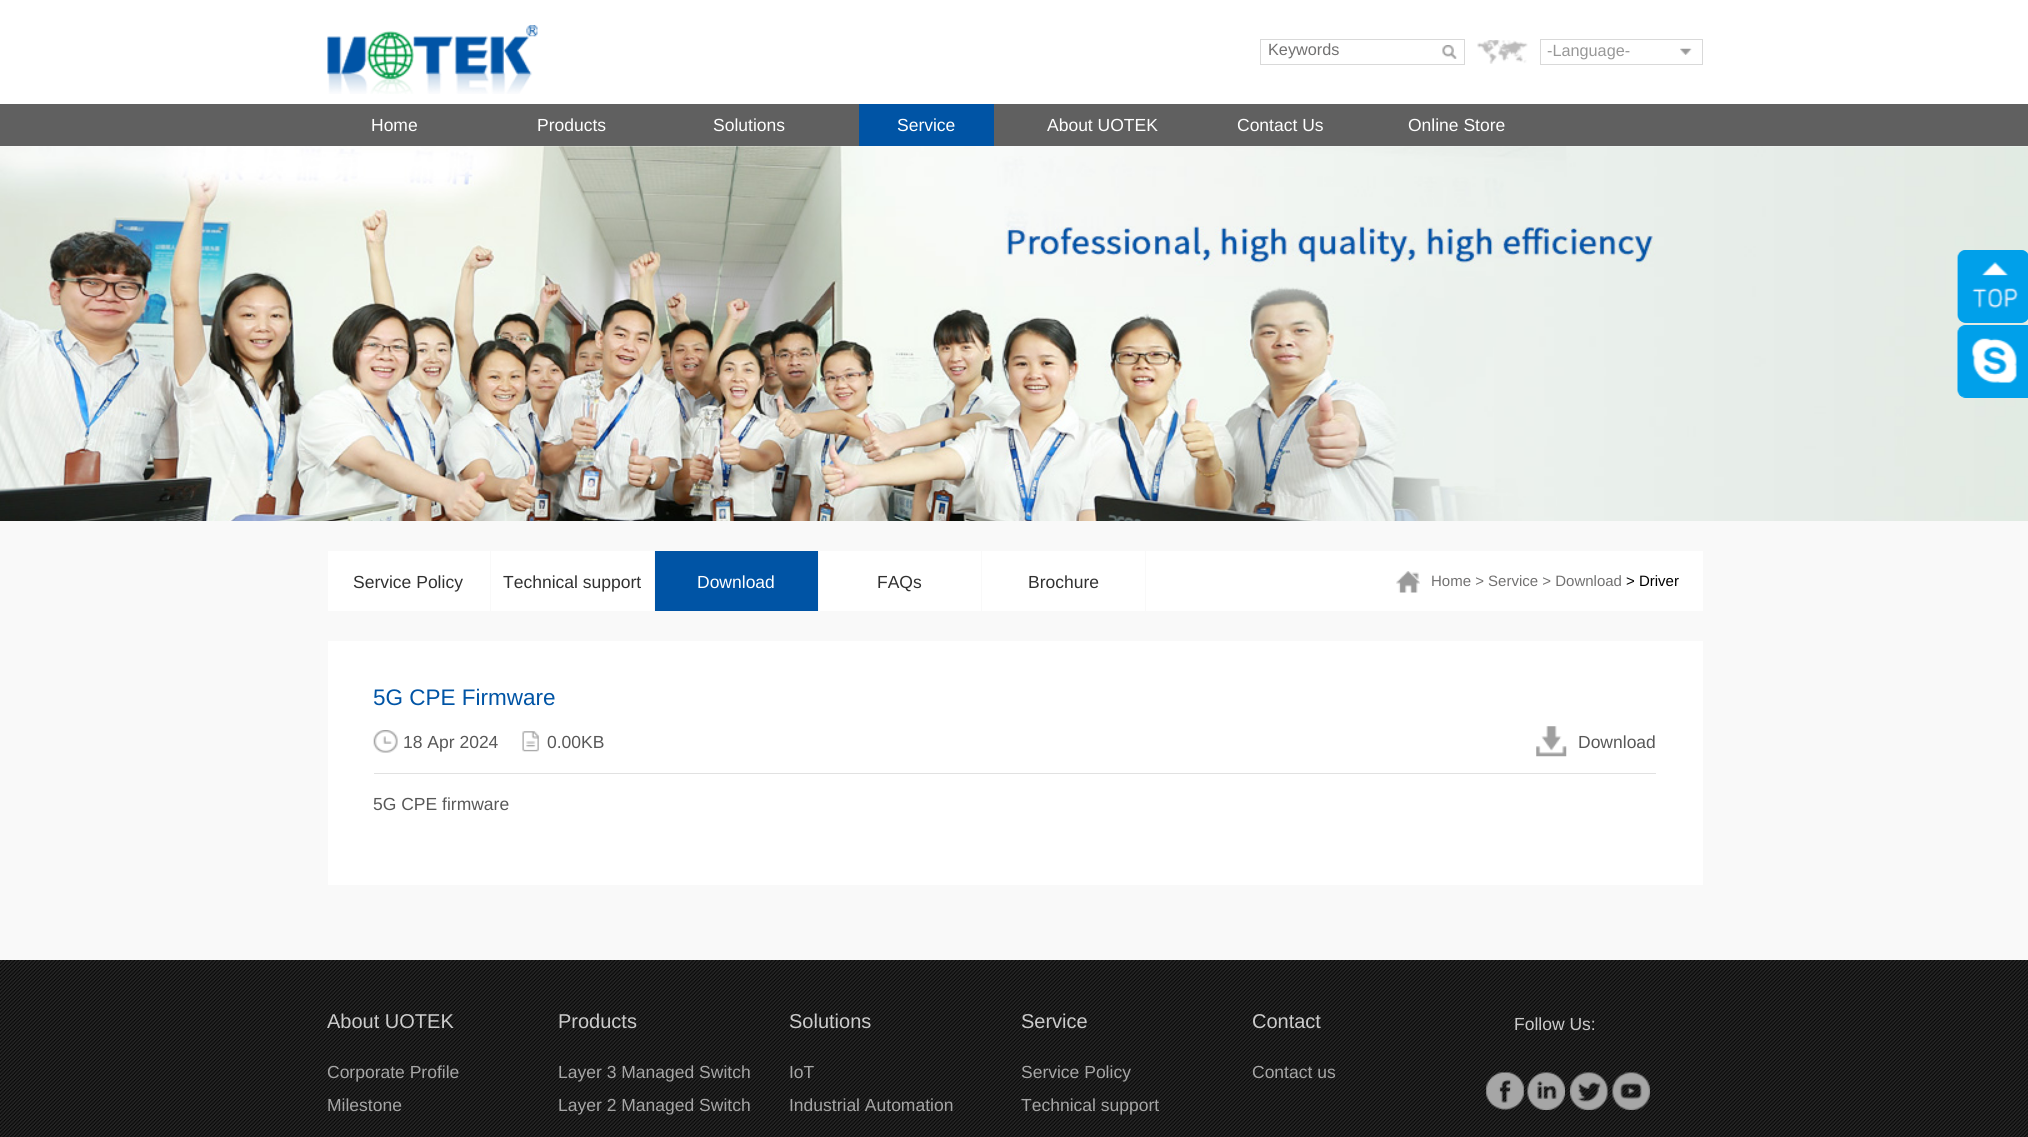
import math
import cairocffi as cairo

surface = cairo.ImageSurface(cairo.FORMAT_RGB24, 2028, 1137)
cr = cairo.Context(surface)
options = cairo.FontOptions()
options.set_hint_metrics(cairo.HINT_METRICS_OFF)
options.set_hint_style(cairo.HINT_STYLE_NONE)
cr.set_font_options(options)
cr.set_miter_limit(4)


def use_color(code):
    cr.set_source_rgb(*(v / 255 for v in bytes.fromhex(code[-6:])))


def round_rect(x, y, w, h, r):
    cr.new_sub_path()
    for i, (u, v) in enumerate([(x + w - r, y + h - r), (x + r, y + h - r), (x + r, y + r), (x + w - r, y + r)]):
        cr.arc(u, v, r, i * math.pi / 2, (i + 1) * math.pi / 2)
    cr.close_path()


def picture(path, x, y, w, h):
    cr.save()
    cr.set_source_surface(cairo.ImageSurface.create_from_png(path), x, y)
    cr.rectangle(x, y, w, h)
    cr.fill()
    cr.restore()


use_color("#ffffff")
cr.paint()
picture("img1.png", 327, 25, 211, 69)
cr.rectangle(1260.5, 39.5, 204, 25)
use_color("#d9d9d9")
cr.set_line_width(1)
cr.stroke()
cr.select_font_face("Liberation Sans")
cr.set_font_size(16.25)
use_color("#727171")
cr.move_to(1268, 55)
cr.show_text("Keywords")
picture("img2.png", 1442, 45, 15, 14)
picture("img3.png", 1477, 40, 51, 24)
picture("img4.png", 1680, 48, 12, 7)
cr.rectangle(1540.5, 39.5, 162, 25)
use_color("#d9d9d9")
cr.stroke()
use_color("#989898")
cr.move_to(1547, 56)
cr.show_text("-Language-")
use_color("#606060")
cr.rectangle(0, 104, 2028, 42)
cr.fill()
cr.set_font_size(17.5)
use_color("#ffffff")
cr.move_to(371, 131)
cr.show_text("Home")
cr.move_to(537, 131)
cr.show_text("Products")
cr.move_to(713, 131)
cr.show_text("Solutions")
use_color("#0054a5")
cr.rectangle(859, 104, 135, 42)
cr.fill()
use_color("#ffffff")
cr.move_to(897, 131)
cr.show_text("Service")
cr.move_to(1047, 131)
cr.show_text("About UOTEK")
cr.move_to(1237, 131)
cr.show_text("Contact Us")
cr.move_to(1408, 131)
cr.show_text("Online Store")
picture("img5.png", 0, 146, 2028, 375)
use_color("#00a0ea")
round_rect(1958, 250, 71, 73, 8)
cr.fill()
picture("img6.png", 1957, 250, 71, 73)
round_rect(1958, 325, 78, 73, 8)
cr.fill()
picture("img7.png", 1957, 325, 60, 73)
use_color("#f9f9f9")
cr.rectangle(0, 521, 2028, 439)
cr.fill()
use_color("#ffffff")
cr.rectangle(328, 551, 1375, 60)
cr.fill()
use_color("#f9f9f9")
cr.rectangle(490, 551, 1, 60)
cr.fill()
use_color("#313131")
cr.move_to(353, 588)
cr.show_text("Service Policy")
use_color("#f9f9f9")
cr.rectangle(654, 551, 1, 60)
cr.fill()
use_color("#313131")
cr.move_to(503, 588)
cr.show_text("Technical support")
use_color("#0054a5")
cr.rectangle(655, 551, 163, 60)
cr.fill()
use_color("#f9f9f9")
cr.rectangle(818, 551, 1, 60)
cr.fill()
use_color("#ffffff")
cr.move_to(697, 588)
cr.show_text("Download")
use_color("#f9f9f9")
cr.rectangle(981, 551, 1, 60)
cr.fill()
use_color("#313131")
cr.move_to(877, 588)
cr.show_text("FAQs")
use_color("#f9f9f9")
cr.rectangle(1145, 551, 1, 60)
cr.fill()
use_color("#313131")
cr.move_to(1028, 588)
cr.show_text("Brochure")
picture("img8.png", 1396, 571, 24, 22)
cr.set_font_size(15)
use_color("#727171")
cr.move_to(1431, 586)
cr.show_text("Home > Service > Download")
use_color("#000000")
cr.move_to(1626, 586)
cr.show_text("> Driver")
use_color("#ffffff")
cr.rectangle(328, 641, 1375, 244)
cr.fill()
cr.set_font_size(22.5)
use_color("#0054a5")
cr.move_to(373, 705)
cr.show_text("5G CPE Firmware")
picture("img9.png", 373, 730, 25, 23)
cr.set_font_size(17.5)
use_color("#585858")
cr.move_to(403, 748)
cr.show_text("18 Apr 2024")
picture("img10.png", 522, 731, 17, 21)
cr.move_to(547, 748)
cr.show_text("0.00KB")
picture("img11.png", 1536, 726, 31, 31)
cr.move_to(1578, 748)
cr.show_text("Download")
use_color("#e1e1e1")
cr.rectangle(374, 773, 1282, 1)
cr.fill()
use_color("#585858")
cr.move_to(373, 810)
cr.show_text("5G CPE firmware")
picture("img12.png", 0, 960, 2028, 177)
cr.set_font_size(20)
use_color("#cccccc")
cr.move_to(327, 1028)
cr.show_text("About UOTEK")
cr.set_font_size(17.5)
use_color("#a6a6a6")
cr.move_to(327, 1078)
cr.show_text("Corporate Profile")
cr.move_to(327, 1111)
cr.show_text("Milestone")
cr.set_font_size(20)
use_color("#cccccc")
cr.move_to(558, 1028)
cr.show_text("Products")
cr.set_font_size(17.5)
use_color("#a6a6a6")
cr.move_to(558, 1078)
cr.show_text("Layer 3 Managed Switch")
cr.move_to(558, 1111)
cr.show_text("Layer 2 Managed Switch")
cr.set_font_size(20)
use_color("#cccccc")
cr.move_to(789, 1028)
cr.show_text("Solutions")
cr.set_font_size(17.5)
use_color("#a6a6a6")
cr.move_to(789, 1078)
cr.show_text("IoT")
cr.move_to(789, 1111)
cr.show_text("Industrial Automation")
cr.set_font_size(20)
use_color("#cccccc")
cr.move_to(1021, 1028)
cr.show_text("Service")
cr.set_font_size(17.5)
use_color("#a6a6a6")
cr.move_to(1021, 1078)
cr.show_text("Service Policy")
cr.move_to(1021, 1111)
cr.show_text("Technical support")
cr.set_font_size(20)
use_color("#cccccc")
cr.move_to(1252, 1028)
cr.show_text("Contact")
cr.set_font_size(17.5)
use_color("#a6a6a6")
cr.move_to(1252, 1078)
cr.show_text("Contact us")
use_color("#cccccc")
cr.move_to(1514, 1030)
cr.show_text("Follow Us:")
picture("img13.png", 1486, 1072, 38, 38)
picture("img14.png", 1527, 1072, 38, 38)
picture("img15.png", 1570, 1072, 38, 38)
picture("img16.png", 1612, 1072, 38, 38)
surface.write_to_png("result.png")
